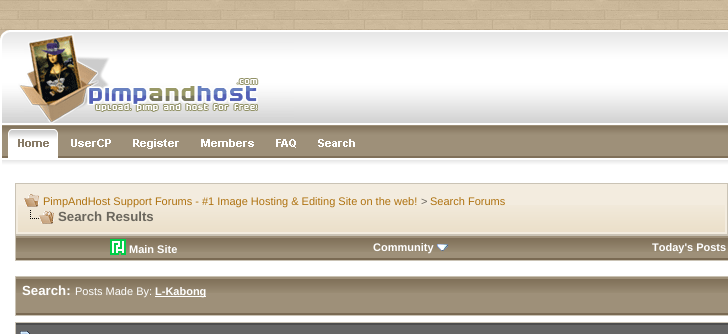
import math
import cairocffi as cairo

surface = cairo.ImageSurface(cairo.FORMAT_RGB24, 728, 334)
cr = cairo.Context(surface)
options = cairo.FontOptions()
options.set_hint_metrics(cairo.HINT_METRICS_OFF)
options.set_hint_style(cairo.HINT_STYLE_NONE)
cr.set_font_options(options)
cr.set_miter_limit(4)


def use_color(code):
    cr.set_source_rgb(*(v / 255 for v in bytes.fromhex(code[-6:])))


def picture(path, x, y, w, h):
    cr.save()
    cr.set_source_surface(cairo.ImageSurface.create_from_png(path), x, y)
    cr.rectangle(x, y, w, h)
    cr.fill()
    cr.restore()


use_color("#ffffff")
cr.paint()
picture("img1.png", 0, 0, 728, 30)
picture("img2.png", 0, 30, 294, 95)
picture("img3.png", 294, 30, 434, 95)
picture("img4.png", 2, 125, 63, 33)
picture("img5.png", 65, 125, 57, 33)
picture("img6.png", 122, 125, 67, 33)
picture("img7.png", 189, 125, 75, 33)
picture("img8.png", 264, 125, 43, 33)
picture("img9.png", 307, 125, 59, 33)
picture("img10.png", 366, 125, 362, 33)
picture("img11.png", 2, 158, 726, 25)
use_color("#cac3b5")
cr.rectangle(15, 183, 713, 78)
cr.fill()
use_color("#f3ecdf")
cr.rectangle(18, 186, 707, 19)
cr.fill()
picture("img12.png", 18, 205, 707, 27)
cr.rectangle(17, 185, 709, 48)
cr.stroke()
picture("img13.png", 24, 194, 15, 13)
cr.select_font_face("Liberation Sans")
cr.set_font_size(11)
use_color("#ae710e")
cr.move_to(43, 205)
cr.show_text("PimpAndHost Support Forums - #1 Image Hosting & Editing Site on the web!")
use_color("#6a665d")
cr.move_to(421, 205)
cr.show_text(">")
use_color("#ae710e")
cr.move_to(430, 205)
cr.show_text("Search Forums")
picture("img14.png", 30, 210, 24, 14)
cr.select_font_face("Liberation Sans", cairo.FONT_SLANT_NORMAL, cairo.FONT_WEIGHT_BOLD)
cr.set_font_size(13.25)
use_color("#6a665d")
cr.move_to(58, 221)
cr.show_text("Search Results")
use_color("#9e9079")
cr.rectangle(16, 236, 712, 22)
cr.fill()
picture("img15.png", 16, 238, 255, 14)
use_color("#7a6a53")
cr.rectangle(16, 258, 712, 2)
cr.fill()
picture("img16.png", 110, 239, 16, 16)
cr.set_font_size(11)
use_color("#ffffff")
cr.move_to(129, 253)
cr.show_text("Main Site")
picture("img17.png", 271, 238, 279, 14)
cr.move_to(373, 251)
cr.show_text("Community")
picture("img18.png", 437, 244, 11, 7)
picture("img19.png", 550, 238, 178, 14)
cr.move_to(652, 251)
cr.show_text("Today's Posts")
use_color("#cac3b5")
cr.rectangle(15, 276, 713, 40)
cr.fill()
use_color("#9e9079")
cr.rectangle(16, 277, 712, 36)
cr.fill()
picture("img20.png", 16, 279, 712, 14)
use_color("#7a6a53")
cr.rectangle(16, 313, 712, 2)
cr.fill()
cr.set_font_size(13.25)
use_color("#ffffff")
cr.move_to(22, 295)
cr.show_text("Search:")
cr.select_font_face("Liberation Sans")
cr.set_font_size(11)
cr.move_to(75, 295)
cr.show_text("Posts Made By:")
cr.rectangle(155, 296, 51, 1)
cr.fill()
cr.select_font_face("Liberation Sans", cairo.FONT_SLANT_NORMAL, cairo.FONT_WEIGHT_BOLD)
cr.move_to(155, 295)
cr.show_text("L-Kabong")
use_color("#cac3b5")
cr.rectangle(15, 322, 713, 12)
cr.fill()
use_color("#666666")
cr.rectangle(16, 325, 712, 9)
cr.fill()
use_color("#4e4e4e")
cr.rectangle(16, 323, 712, 2)
cr.fill()
picture("img21.png", 20, 331, 10, 3)
surface.write_to_png("result.png")
